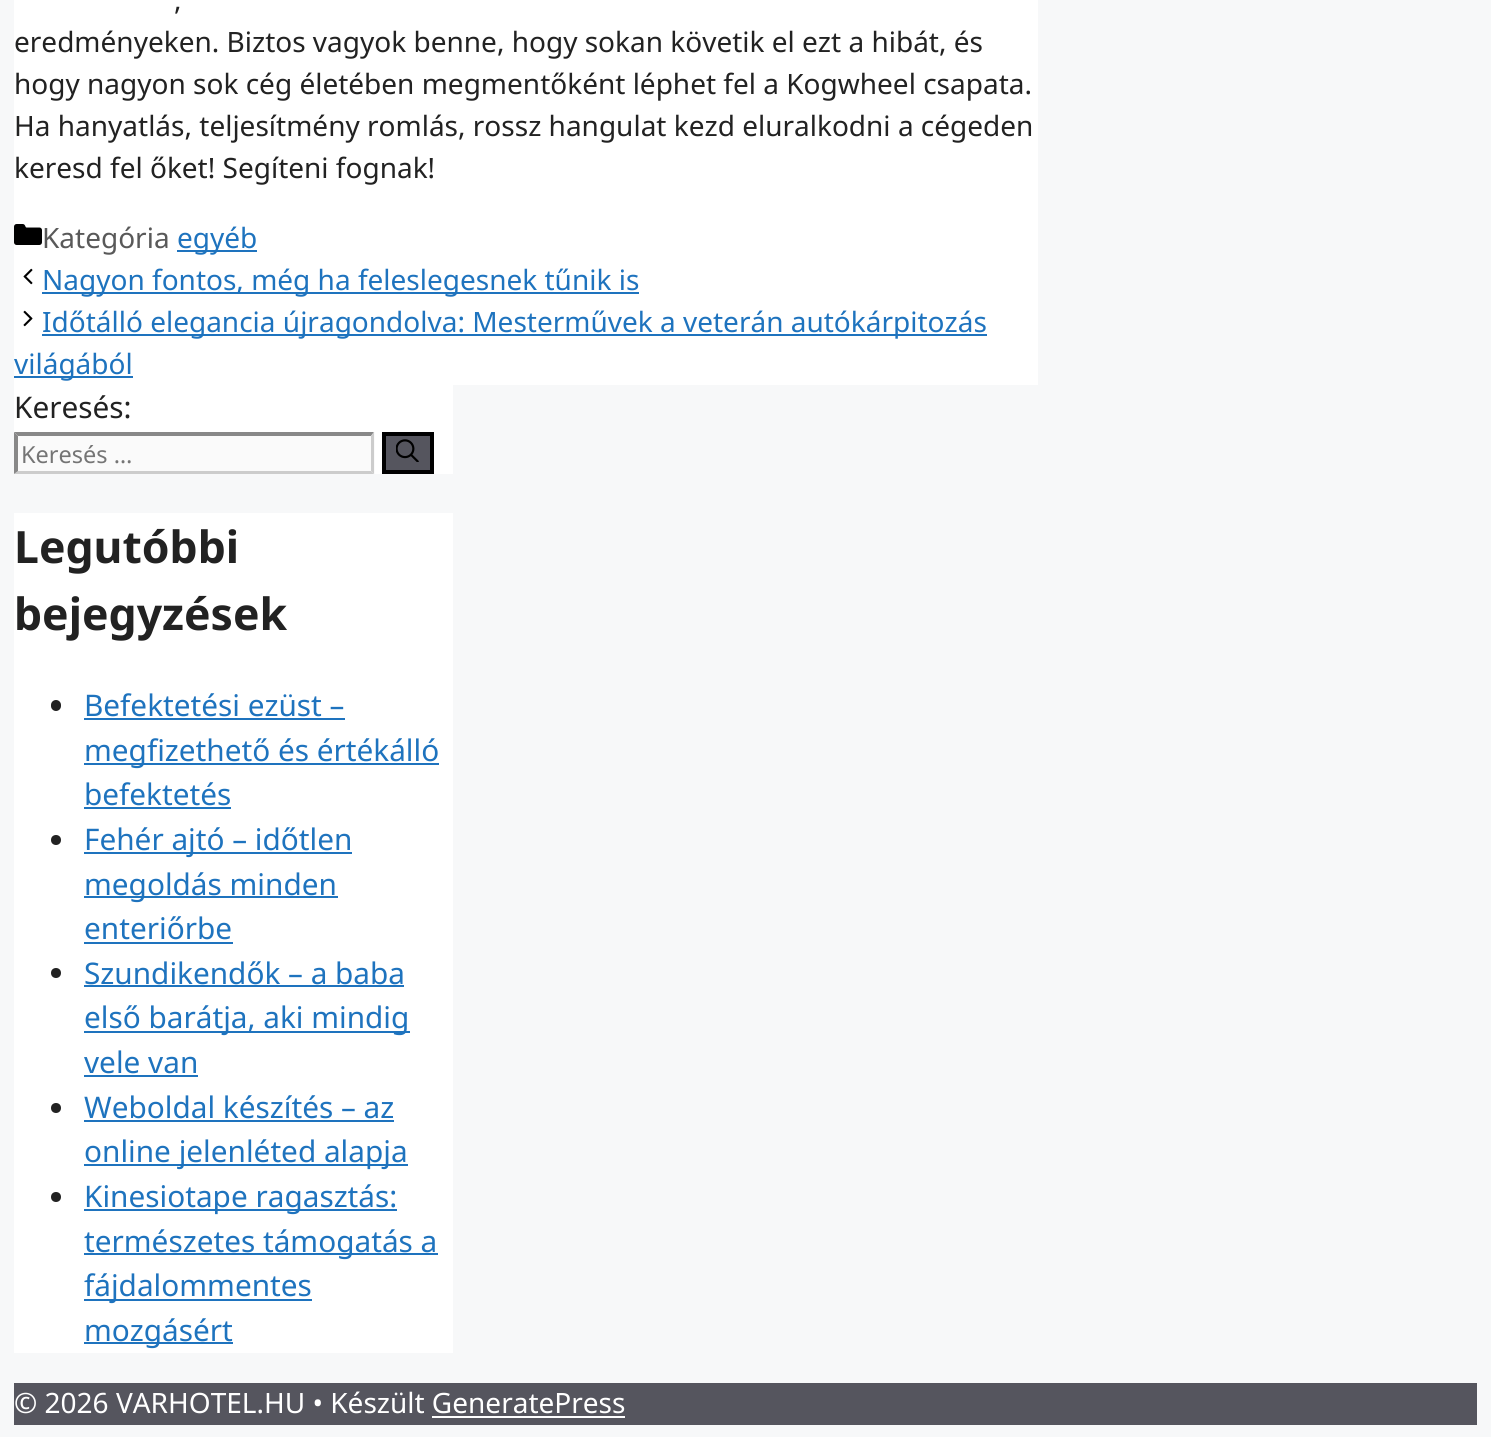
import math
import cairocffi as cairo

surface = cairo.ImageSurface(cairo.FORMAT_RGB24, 1491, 1437)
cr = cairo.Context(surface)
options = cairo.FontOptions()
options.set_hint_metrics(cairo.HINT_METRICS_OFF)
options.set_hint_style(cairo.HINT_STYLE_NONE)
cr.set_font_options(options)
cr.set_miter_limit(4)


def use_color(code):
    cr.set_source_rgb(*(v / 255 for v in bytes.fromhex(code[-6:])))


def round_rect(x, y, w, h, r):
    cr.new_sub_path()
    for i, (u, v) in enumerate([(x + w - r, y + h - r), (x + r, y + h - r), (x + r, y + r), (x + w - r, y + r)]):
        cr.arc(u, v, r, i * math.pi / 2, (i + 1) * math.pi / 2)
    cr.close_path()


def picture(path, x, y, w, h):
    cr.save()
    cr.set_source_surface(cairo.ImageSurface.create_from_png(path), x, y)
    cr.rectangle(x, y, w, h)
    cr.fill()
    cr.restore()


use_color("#f7f8f9")
cr.paint()
use_color("#ffffff")
cr.rectangle(14, 0, 1024, 385)
cr.fill()
cr.select_font_face("Noto Sans")
cr.set_font_size(28)
use_color("#222222")
cr.move_to(174, 10)
cr.show_text(",")
cr.move_to(14, 52)
cr.show_text("eredményeken. Biztos vagyok benne, hogy sokan követik el ezt a hibát, és")
cr.move_to(14, 94)
cr.show_text("hogy nagyon sok cég életében megmentőként léphet fel a Kogwheel csapata.")
cr.move_to(14, 136)
cr.show_text("Ha hanyatlás, teljesítmény romlás, rossz hangulat kezd eluralkodni a cégeden")
cr.move_to(14, 178)
cr.show_text("keresd fel őket! Segíteni fognak!")
picture("img1.png", 14, 224, 28, 21)
use_color("#595959")
cr.move_to(42, 248)
cr.show_text("Kategória")
use_color("#1e73be")
cr.rectangle(177, 250, 80, 2)
cr.fill()
cr.move_to(177, 248)
cr.show_text("egyéb")
picture("img2.png", 23, 268, 10, 17)
cr.rectangle(42, 292, 597, 2)
cr.fill()
cr.move_to(42, 290)
cr.show_text("Nagyon fontos, még ha feleslegesnek tűnik is")
picture("img3.png", 23, 310, 10, 17)
cr.rectangle(42, 334, 945, 2)
cr.fill()
cr.move_to(42, 332)
cr.show_text("Időtálló elegancia újragondolva: Mesterművek a veterán autókárpitozás")
cr.rectangle(14, 376, 119, 2)
cr.fill()
cr.move_to(14, 374)
cr.show_text("világából")
use_color("#ffffff")
cr.rectangle(14, 385, 439, 89)
cr.fill()
cr.set_font_size(29.75)
use_color("#222222")
cr.move_to(14, 418)
cr.show_text("Keresés:")
use_color("#fafafa")
cr.rectangle(14, 432, 361, 42)
cr.fill()
use_color("#888888")
cr.new_path()
cr.move_to(14, 432)
cr.line_to(374, 432)
cr.line_to(371, 436)
cr.line_to(18, 436)
cr.close_path()
cr.fill()
use_color("#cccccc")
cr.new_path()
cr.move_to(374, 432)
cr.line_to(374, 474)
cr.line_to(371, 471)
cr.line_to(371, 436)
cr.close_path()
cr.fill()
cr.new_path()
cr.move_to(374, 474)
cr.line_to(14, 474)
cr.line_to(18, 471)
cr.line_to(371, 471)
cr.close_path()
cr.fill()
use_color("#888888")
cr.new_path()
cr.move_to(14, 474)
cr.line_to(14, 432)
cr.line_to(18, 436)
cr.line_to(18, 471)
cr.close_path()
cr.fill()
cr.set_font_size(23.5)
use_color("#757575")
cr.move_to(21, 463)
cr.show_text("Keresés …")
use_color("#55555e")
cr.rectangle(384, 434, 48, 38)
cr.fill_preserve()
use_color("#000000")
cr.set_line_width(4)
cr.stroke()
picture("img4.png", 396, 439, 23, 23)
use_color("#ffffff")
cr.rectangle(14, 513, 439, 840)
cr.fill()
cr.select_font_face("Noto Sans", cairo.FONT_SLANT_NORMAL, cairo.FONT_WEIGHT_BOLD)
cr.set_font_size(44.5)
use_color("#222222")
cr.move_to(14, 563)
cr.show_text("Legutóbbi")
cr.move_to(14, 630)
cr.show_text("bejegyzések")
round_rect(51, 700, 10, 11, 5)
cr.fill()
cr.select_font_face("Noto Sans")
cr.set_font_size(29.75)
use_color("#1e73be")
cr.move_to(84, 716)
cr.show_text("Befektetési ezüst –")
cr.rectangle(84, 718, 261, 2)
cr.fill()
cr.rectangle(84, 763, 355, 2)
cr.fill()
cr.move_to(84, 761)
cr.show_text("megfizethető és értékálló")
cr.move_to(84, 805)
cr.show_text("befektetés")
cr.rectangle(84, 807, 147, 2)
cr.fill()
use_color("#222222")
cr.arc(56, 840, 5, 0, 2 * math.pi)
cr.fill()
use_color("#1e73be")
cr.rectangle(84, 852, 268, 2)
cr.fill()
cr.move_to(84, 850)
cr.show_text("Fehér ajtó – időtlen")
cr.rectangle(84, 896, 254, 2)
cr.fill()
cr.move_to(84, 895)
cr.show_text("megoldás minden")
cr.move_to(84, 939)
cr.show_text("enteriőrbe")
cr.rectangle(84, 942, 149, 2)
cr.fill()
use_color("#222222")
cr.arc(56, 973, 5, 0, 2 * math.pi)
cr.fill()
use_color("#1e73be")
cr.move_to(84, 984)
cr.show_text("Szundikendők – a baba")
cr.rectangle(84, 985, 320, 2)
cr.fill()
cr.rectangle(84, 1031, 326, 2)
cr.fill()
cr.move_to(84, 1028)
cr.show_text("első barátja, aki mindig")
cr.move_to(84, 1073)
cr.show_text("vele van")
cr.rectangle(84, 1075, 114, 2)
cr.fill()
use_color("#222222")
cr.arc(56, 1108, 5, 0, 2 * math.pi)
cr.fill()
use_color("#1e73be")
cr.move_to(84, 1118)
cr.show_text("Weboldal készítés – az")
cr.rectangle(84, 1120, 310, 2)
cr.fill()
cr.rectangle(84, 1164, 324, 2)
cr.fill()
cr.move_to(84, 1162)
cr.show_text("online jelenléted alapja")
use_color("#222222")
cr.new_path()
cr.arc(56, 1197, 5, 0, 2 * math.pi)
cr.fill()
use_color("#1e73be")
cr.rectangle(84, 1209, 313, 2)
cr.fill()
cr.move_to(84, 1207)
cr.show_text("Kinesiotape ragasztás:")
cr.rectangle(84, 1253, 354, 2)
cr.fill()
cr.move_to(84, 1252)
cr.show_text("természetes támogatás a")
cr.rectangle(84, 1299, 228, 2)
cr.fill()
cr.move_to(84, 1296)
cr.show_text("fájdalommentes")
cr.rectangle(84, 1342, 149, 2)
cr.fill()
cr.move_to(84, 1341)
cr.show_text("mozgásért")
use_color("#55555e")
cr.rectangle(14, 1383, 1463, 42)
cr.fill()
cr.set_font_size(28)
use_color("#ffffff")
cr.move_to(14, 1413)
cr.show_text("© 2026 VARHOTEL.HU • Készült GeneratePress")
cr.rectangle(432, 1416, 193, 2)
cr.fill()
surface.write_to_png("result.png")
